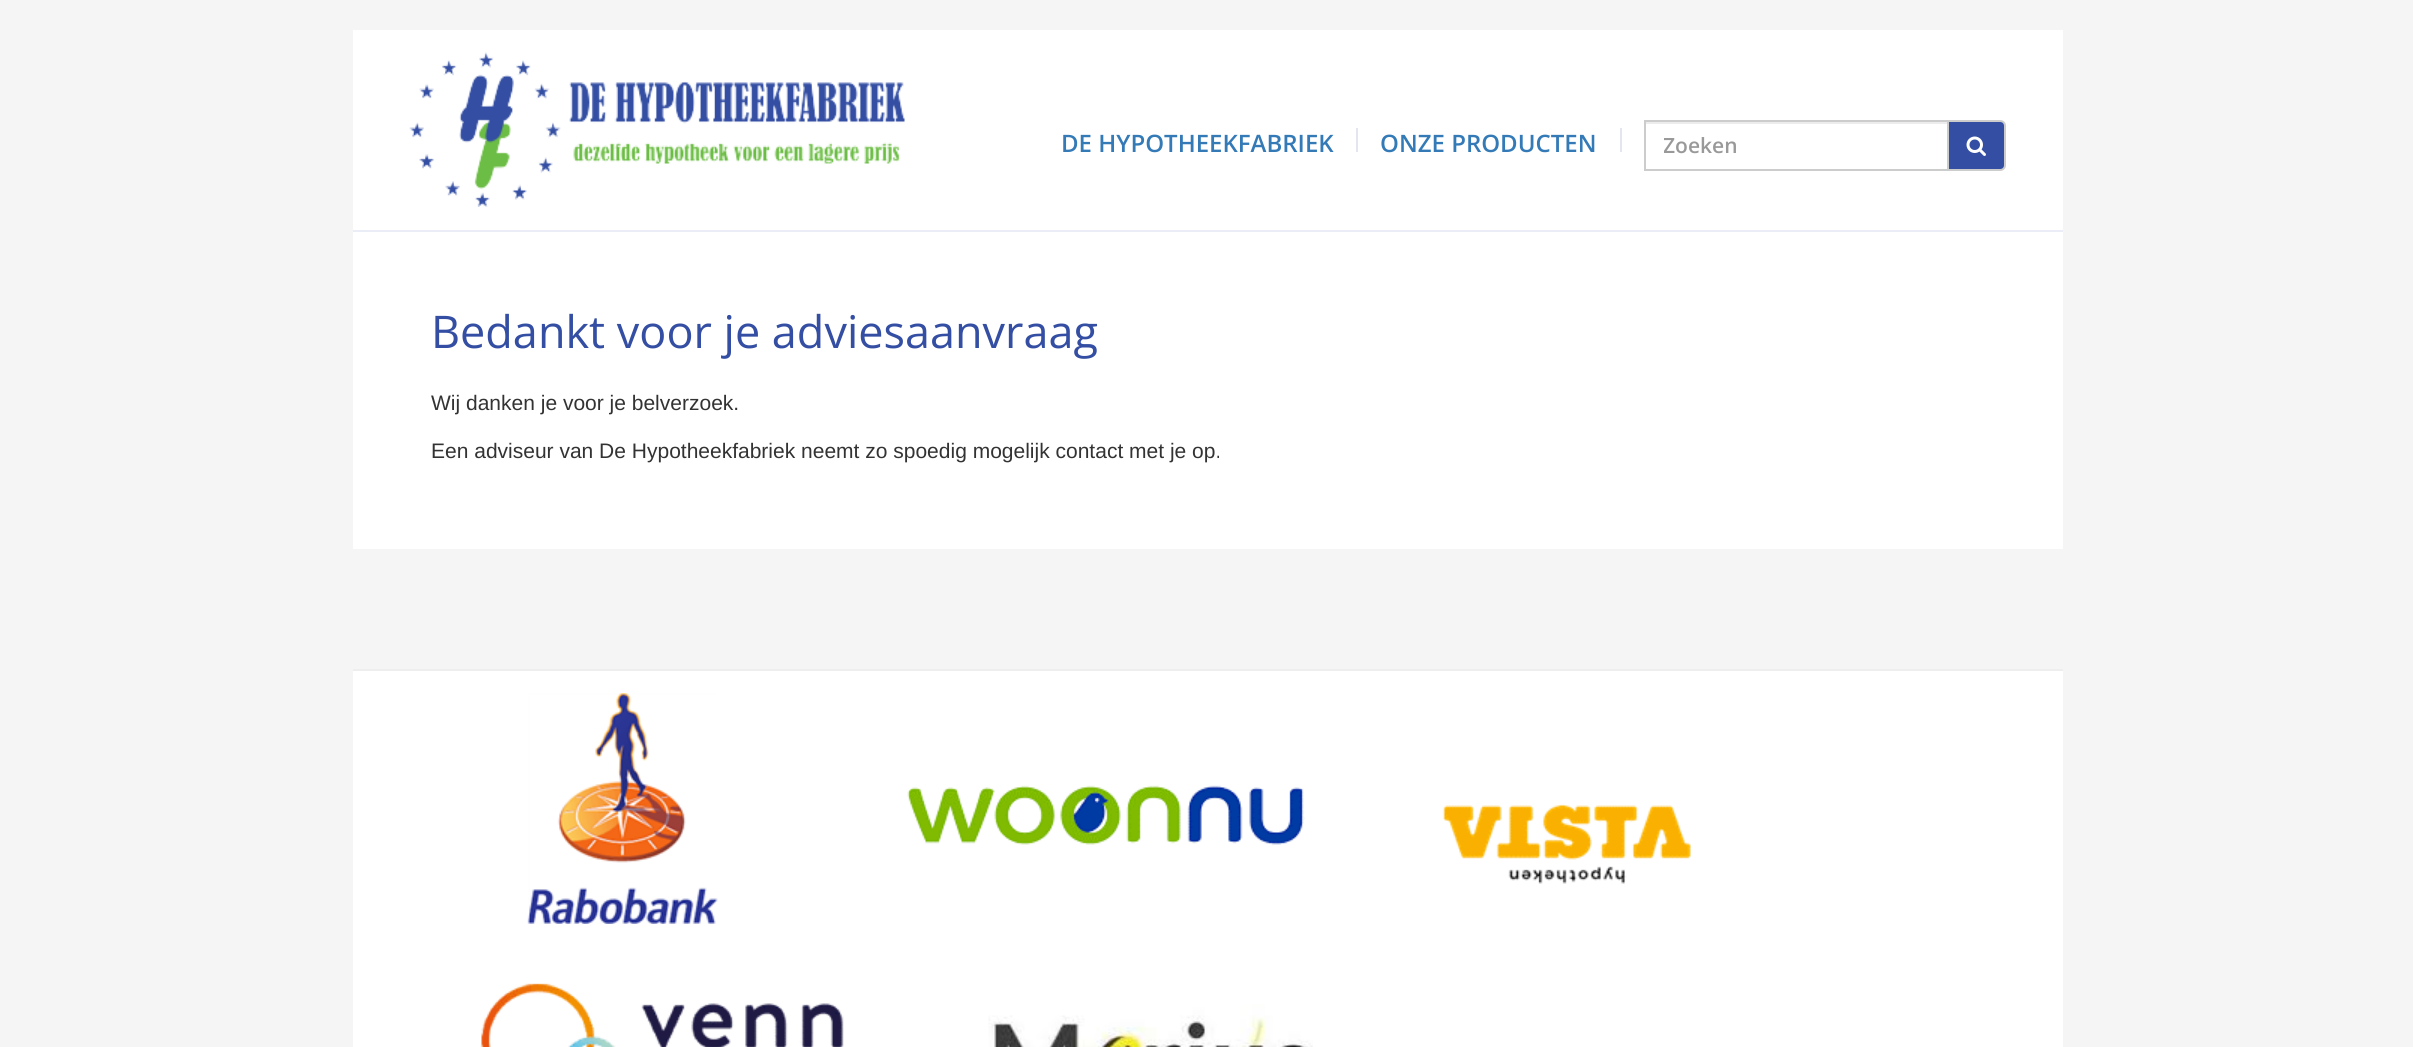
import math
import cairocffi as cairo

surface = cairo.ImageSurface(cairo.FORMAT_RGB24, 2413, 1047)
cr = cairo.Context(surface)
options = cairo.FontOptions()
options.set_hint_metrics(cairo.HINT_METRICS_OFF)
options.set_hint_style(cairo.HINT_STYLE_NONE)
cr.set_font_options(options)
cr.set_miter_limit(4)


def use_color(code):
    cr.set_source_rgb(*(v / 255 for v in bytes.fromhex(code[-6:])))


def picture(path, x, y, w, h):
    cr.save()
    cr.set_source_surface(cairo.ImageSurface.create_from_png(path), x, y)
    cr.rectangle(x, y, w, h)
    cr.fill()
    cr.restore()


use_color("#f5f5f5")
cr.paint()
use_color("#ffffff")
cr.rectangle(353, 30, 1710, 200)
cr.fill()
picture("img1.png", 409, 52, 496, 155)
cr.select_font_face("Open Sans SemiBold")
cr.set_font_size(24)
use_color("#337ab7")
cr.move_to(1061, 152)
cr.show_text("DE HYPOTHEEKFABRIEK")
use_color("#e3e6ef")
cr.rectangle(1356, 128, 2, 24)
cr.fill()
use_color("#337ab7")
cr.move_to(1380, 152)
cr.show_text("ONZE PRODUCTEN")
use_color("#e3e6ef")
cr.rectangle(1620, 128, 2, 24)
cr.fill()
use_color("#ececec")
cr.rectangle(1646, 122, 301, 2)
cr.fill()
cr.rectangle(1645, 121, 303, 49)
use_color("#cccccc")
cr.stroke()
cr.save()
cr.rectangle(1664, 131, 265, 28)
cr.clip()
cr.set_font_size(21)
use_color("#999999")
cr.move_to(1663, 153)
cr.show_text("Zoeken")
cr.restore()
use_color("#334ea2")
cr.new_path()
cr.move_to(1948, 121)
cr.line_to(2000, 121)
cr.curve_to(2003, 121, 2005, 123, 2005, 126)
cr.line_to(2005, 165)
cr.curve_to(2005, 168, 2003, 170, 2000, 170)
cr.line_to(1948, 170)
cr.close_path()
cr.fill_preserve()
use_color("#cccccc")
cr.stroke()
picture("img2.png", 1966, 136, 20, 20)
use_color("#ffffff")
cr.rectangle(353, 232, 1710, 317)
cr.fill()
use_color("#ebedf6")
cr.rectangle(353, 230, 1710, 2)
cr.fill()
cr.select_font_face("Open Sans")
cr.set_font_size(45)
use_color("#334ea2")
cr.move_to(431, 348)
cr.show_text("Bedankt voor je adviesaanvraag")
cr.select_font_face("Liberation Sans")
cr.set_font_size(21)
use_color("#333333")
cr.move_to(431, 410)
cr.show_text("Wij danken je voor je belverzoek.")
cr.move_to(431, 458)
cr.show_text("Een adviseur van De Hypotheekfabriek neemt zo spoedig mogelijk contact met je op.")
use_color("#ffffff")
cr.rectangle(353, 671, 1710, 376)
cr.fill()
use_color("#eeeeee")
cr.rectangle(353, 669, 1710, 2)
cr.fill()
picture("img3.png", 527, 693, 191, 231)
picture("img4.png", 907, 785, 398, 61)
picture("img5.png", 1442, 804, 249, 80)
picture("img6.png", 480, 983, 364, 64)
picture("img7.png", 988, 1004, 325, 43)
surface.write_to_png("result.png")
